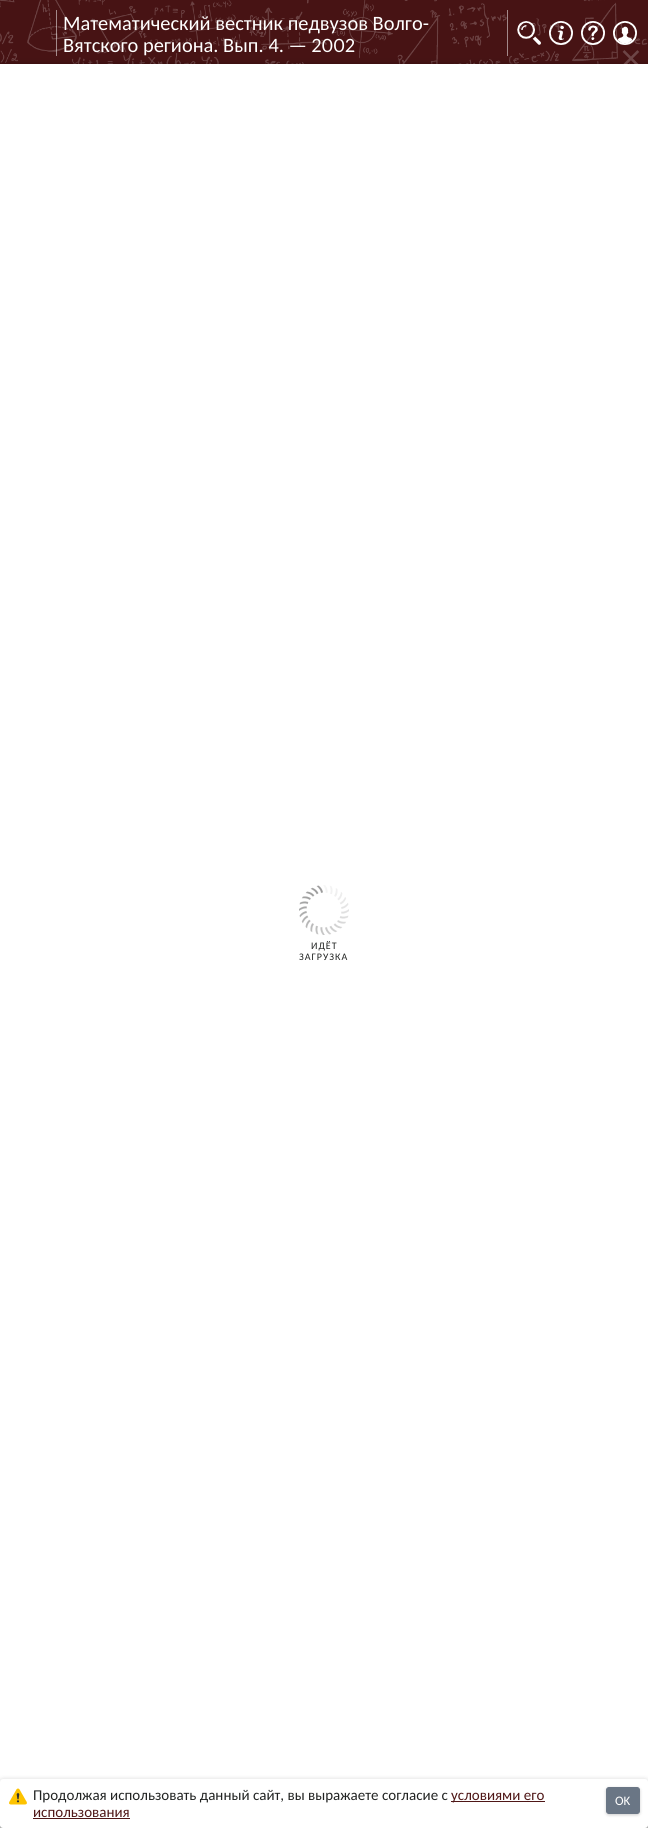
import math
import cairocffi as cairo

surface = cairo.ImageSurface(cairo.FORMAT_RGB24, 648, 1828)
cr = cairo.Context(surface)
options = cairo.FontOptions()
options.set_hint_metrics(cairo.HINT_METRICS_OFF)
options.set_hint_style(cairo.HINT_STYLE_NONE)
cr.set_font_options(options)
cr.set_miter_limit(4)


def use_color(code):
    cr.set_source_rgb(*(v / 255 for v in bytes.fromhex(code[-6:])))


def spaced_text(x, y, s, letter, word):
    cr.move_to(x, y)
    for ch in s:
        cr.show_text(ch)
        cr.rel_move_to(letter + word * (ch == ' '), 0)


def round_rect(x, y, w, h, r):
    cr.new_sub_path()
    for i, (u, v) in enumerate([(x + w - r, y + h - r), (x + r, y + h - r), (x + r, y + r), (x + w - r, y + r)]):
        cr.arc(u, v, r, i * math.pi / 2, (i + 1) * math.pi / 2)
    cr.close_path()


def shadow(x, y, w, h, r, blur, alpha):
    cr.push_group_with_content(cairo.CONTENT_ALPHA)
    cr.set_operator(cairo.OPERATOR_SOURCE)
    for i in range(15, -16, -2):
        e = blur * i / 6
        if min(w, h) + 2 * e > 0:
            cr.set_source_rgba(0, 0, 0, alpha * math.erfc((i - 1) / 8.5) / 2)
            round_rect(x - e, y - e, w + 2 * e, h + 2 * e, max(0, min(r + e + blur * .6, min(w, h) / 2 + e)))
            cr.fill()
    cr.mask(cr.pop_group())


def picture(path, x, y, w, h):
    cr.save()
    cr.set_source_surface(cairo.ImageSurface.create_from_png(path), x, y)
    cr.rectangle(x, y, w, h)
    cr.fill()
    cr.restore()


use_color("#ffffff")
cr.paint()
picture("img1.png", 0, 1826, 648, 2)
picture("img2.png", 0, 0, 648, 64)
use_color("#a3898a")
cr.rectangle(507, 10, 1, 46)
cr.fill()
cr.set_source_rgba(1, 1, 1, 0.5)
cr.rectangle(56, 10, 1, 46)
cr.fill()
cr.select_font_face("Carlito")
cr.set_font_size(20.4)
use_color("#ffffff")
cr.move_to(63, 30)
cr.show_text("Математический вестник педвузов Волго-")
cr.select_font_face("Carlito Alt")
cr.move_to(63, 52)
cr.show_text("Вятского региона. Вып. 4. — 2002")
picture("img3.png", 517, 21, 24, 24)
picture("img4.png", 549, 21, 24, 24)
picture("img5.png", 581, 21, 24, 24)
picture("img6.png", 613, 21, 24, 24)
use_color("#000000")
shadow(0, 65, 648, 1762, 0, 3.5, 0.4)
use_color("#ffffff")
cr.rectangle(0, 64, 648, 4)
cr.fill()
cr.select_font_face("Carlito")
cr.set_font_size(40)
use_color("#6d4546")
cr.move_to(621, 71)
cr.show_text("×")
use_color("#ffffff")
cr.new_path()
cr.move_to(4, 64)
cr.line_to(644, 64)
cr.curve_to(646, 64, 648, 66, 648, 68)
cr.line_to(648, 1826)
cr.line_to(0, 1826)
cr.line_to(0, 68)
cr.curve_to(0, 66, 2, 64, 4, 64)
cr.close_path()
cr.fill()
picture("img7.png", 299, 885, 50, 50)
cr.set_font_size(10)
use_color("#212322")
spaced_text(311, 949, "ИДЁТ", 1, 0)
spaced_text(299, 960, "ЗАГРУЗКА", 1, 0)
use_color("#000000")
shadow(0, 1781, 648, 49, 3, 3, 0.3)
use_color("#ffffff")
round_rect(0, 1779, 648, 49, 3)
cr.fill()
picture("img8.png", 9, 1788, 18, 17)
cr.set_font_size(15)
use_color("#212322")
cr.move_to(33, 1800)
cr.show_text("Продолжая использовать данный сайт, вы выражаете согласие с")
use_color("#4f1717")
cr.rectangle(451, 1801, 94, 1)
cr.fill()
cr.move_to(451, 1800)
cr.show_text("условиями его")
cr.move_to(33, 1817)
cr.show_text("использования")
cr.rectangle(33, 1818, 97, 1)
cr.fill()
use_color("#000000")
shadow(606, 1788, 34, 27, 3, 1.5, 0.2)
use_color("#6a7685")
round_rect(606.5, 1787.5, 33, 26, 2.5)
cr.fill_preserve()
cr.set_line_width(1)
cr.stroke()
cr.set_font_size(13)
use_color("#ffffff")
cr.move_to(615, 1805)
cr.show_text("OK")
surface.write_to_png("result.png")
